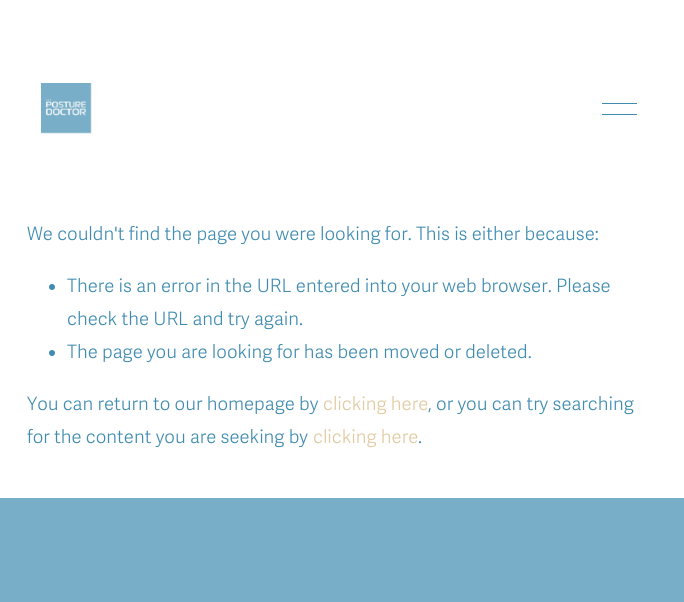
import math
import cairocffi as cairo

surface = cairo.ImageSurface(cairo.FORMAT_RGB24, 684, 602)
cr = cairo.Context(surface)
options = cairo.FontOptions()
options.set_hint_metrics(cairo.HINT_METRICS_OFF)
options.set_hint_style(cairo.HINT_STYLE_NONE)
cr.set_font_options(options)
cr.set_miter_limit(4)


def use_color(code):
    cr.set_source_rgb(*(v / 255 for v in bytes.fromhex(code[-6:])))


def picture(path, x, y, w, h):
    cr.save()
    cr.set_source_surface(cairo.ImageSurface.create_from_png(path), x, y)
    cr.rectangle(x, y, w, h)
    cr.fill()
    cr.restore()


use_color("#ffffff")
cr.paint()
picture("img1.png", 41, 83, 51, 51)
use_color("#408cb1")
cr.rectangle(602, 103, 35, 1)
cr.fill()
cr.rectangle(602, 114, 35, 1)
cr.fill()
cr.select_font_face("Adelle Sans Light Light")
cr.set_font_size(18.45)
cr.move_to(27, 240)
cr.show_text("We couldn't find the page you were looking for. This is either because:")
cr.new_path()
cr.arc(52, 287, 3, 0, 2 * math.pi)
cr.fill()
cr.move_to(67, 292)
cr.show_text("There is an error in the URL entered into your web browser. Please")
cr.move_to(67, 325)
cr.show_text("check the URL and try again.")
cr.new_path()
cr.arc(52, 353, 3, 0, 2 * math.pi)
cr.fill()
cr.move_to(67, 358)
cr.show_text("The page you are looking for has been moved or deleted.")
cr.move_to(27, 410)
cr.show_text("You can return to our homepage by")
use_color("#e1c9a0")
cr.move_to(323, 410)
cr.show_text("clicking here")
use_color("#408cb1")
cr.move_to(428, 410)
cr.show_text(", or you can try searching")
cr.move_to(27, 443)
cr.show_text("for the content you are seeking by")
use_color("#e1c9a0")
cr.move_to(313, 443)
cr.show_text("clicking here")
use_color("#408cb1")
cr.move_to(418, 443)
cr.show_text(".")
use_color("#79aec8")
cr.rectangle(0, 498, 684, 104)
cr.fill()
surface.write_to_png("result.png")
